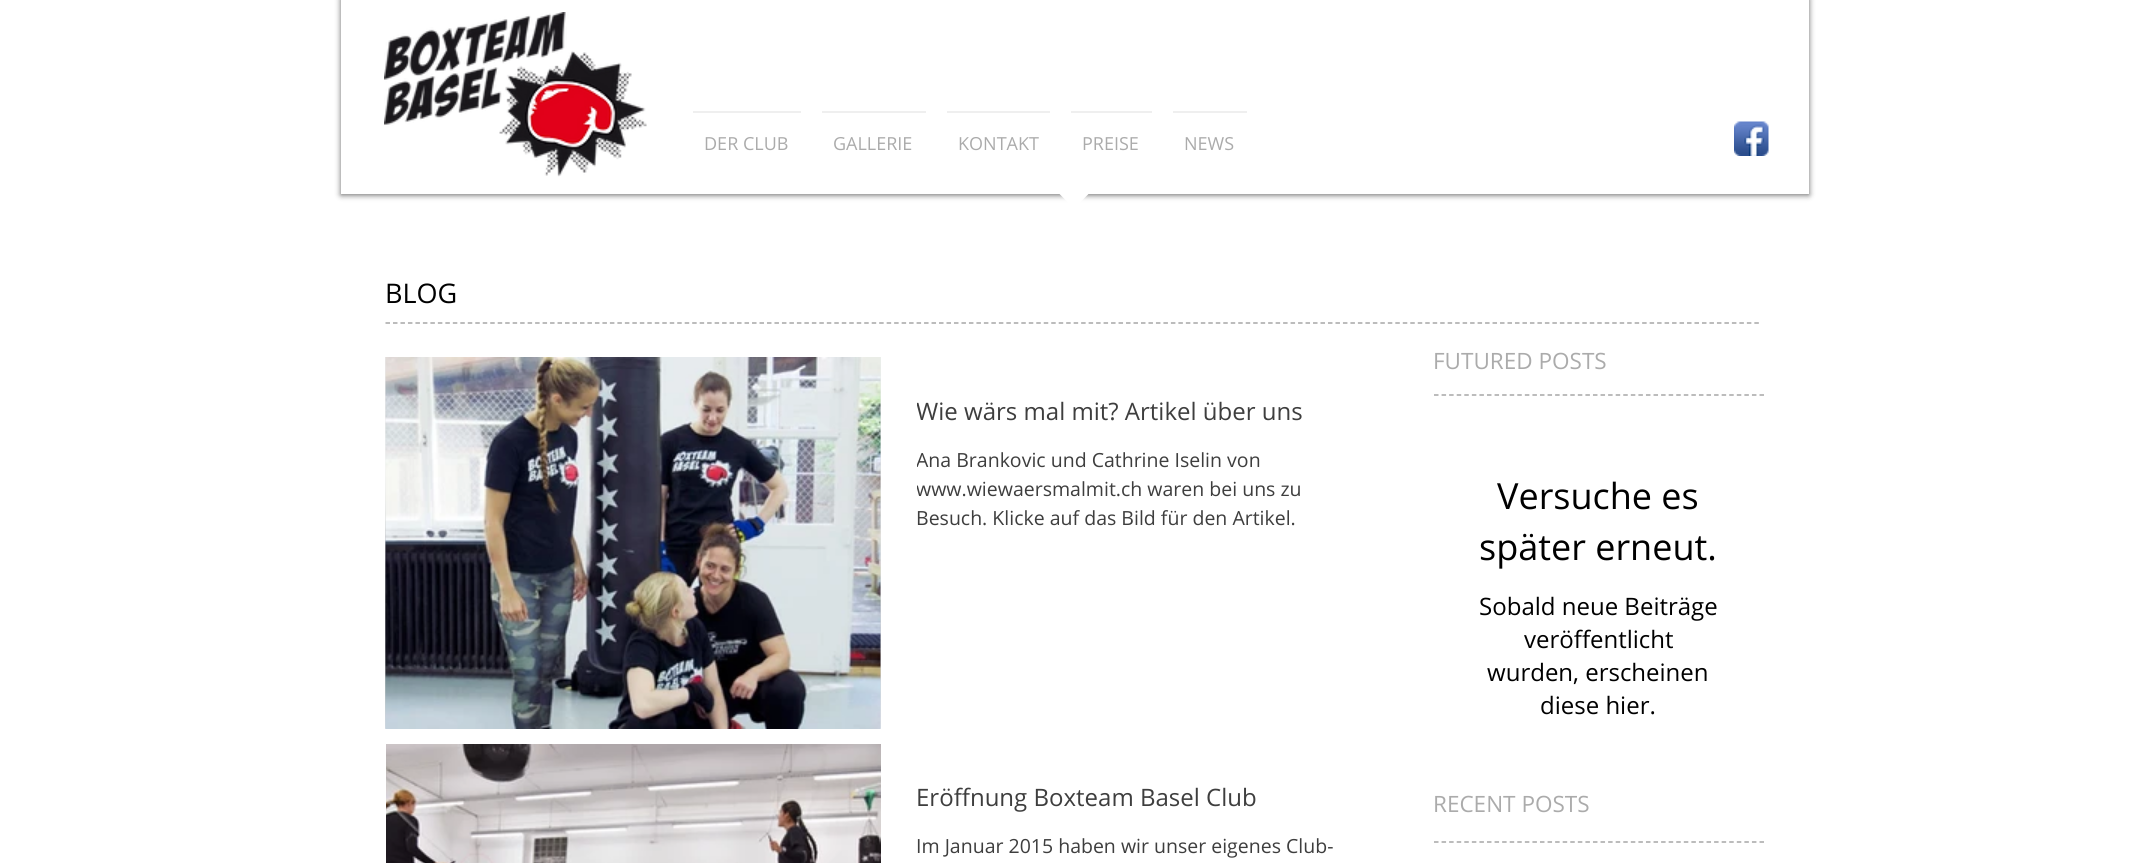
import math
import cairocffi as cairo

surface = cairo.ImageSurface(cairo.FORMAT_RGB24, 2149, 863)
cr = cairo.Context(surface)
options = cairo.FontOptions()
options.set_hint_metrics(cairo.HINT_METRICS_OFF)
options.set_hint_style(cairo.HINT_STYLE_NONE)
cr.set_font_options(options)
cr.set_miter_limit(4)


def use_color(code):
    cr.set_source_rgb(*(v / 255 for v in bytes.fromhex(code[-6:])))


def round_rect(x, y, w, h, r):
    cr.new_sub_path()
    for i, (u, v) in enumerate([(x + w - r, y + h - r), (x + r, y + h - r), (x + r, y + r), (x + w - r, y + r)]):
        cr.arc(u, v, r, i * math.pi / 2, (i + 1) * math.pi / 2)
    cr.close_path()


def shadow(x, y, w, h, r, blur, alpha):
    cr.push_group_with_content(cairo.CONTENT_ALPHA)
    cr.set_operator(cairo.OPERATOR_SOURCE)
    for i in range(15, -16, -2):
        e = blur * i / 6
        if min(w, h) + 2 * e > 0:
            cr.set_source_rgba(0, 0, 0, alpha * math.erfc((i - 1) / 8.5) / 2)
            round_rect(x - e, y - e, w + 2 * e, h + 2 * e, max(0, min(r + e + blur * .6, min(w, h) / 2 + e)))
            cr.fill()
    cr.mask(cr.pop_group())


def picture(path, x, y, w, h):
    cr.save()
    cr.set_source_surface(cairo.ImageSurface.create_from_png(path), x, y)
    cr.rectangle(x, y, w, h)
    cr.fill()
    cr.restore()


use_color("#ffffff")
cr.paint()
use_color("#000000")
shadow(341, -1, 1468, 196, 0, 3, 0.6)
use_color("#ffffff")
cr.rectangle(341, 0, 1468, 194)
cr.fill()
picture("img1.png", 384, 12, 263, 165)
picture("img2.png", 1734, 121, 35, 35)
cr.new_path()
cr.move_to(1059, 193.5)
cr.line_to(1089, 193.5)
cr.line_to(1074, 208.5)
cr.close_path()
cr.fill()
use_color("#efefef")
cr.rectangle(693, 111, 108, 2)
cr.fill()
cr.select_font_face("Open Sans")
cr.set_font_size(18)
use_color("#ababab")
cr.move_to(704, 150)
cr.show_text("DER CLUB")
use_color("#efefef")
cr.rectangle(822, 111, 104, 2)
cr.fill()
use_color("#ababab")
cr.move_to(833, 150)
cr.show_text("GALLERIE")
use_color("#efefef")
cr.rectangle(947, 111, 103, 2)
cr.fill()
use_color("#ababab")
cr.move_to(958, 150)
cr.show_text("KONTAKT")
use_color("#efefef")
cr.rectangle(1071, 111, 81, 2)
cr.fill()
use_color("#ababab")
cr.move_to(1082, 150)
cr.show_text("PREISE")
use_color("#efefef")
cr.rectangle(1173, 111, 74, 2)
cr.fill()
use_color("#ababab")
cr.move_to(1184, 150)
cr.show_text("NEWS")
cr.set_font_size(27)
use_color("#000000")
cr.move_to(385, 303)
cr.show_text("BLOG")
cr.new_path()
cr.move_to(385.5, 323)
cr.line_to(1759.5, 323)
use_color("#a6a6a6")
cr.set_line_width(1.5)
cr.set_dash([4.5, 2.98])
cr.stroke()
cr.set_font_size(22.5)
use_color("#ababab")
cr.move_to(1433, 369)
cr.show_text("FUTURED POSTS")
cr.new_path()
cr.move_to(1434, 395)
cr.line_to(1764, 395)
use_color("#a6a6a6")
cr.set_dash([4.5, 3.07])
cr.stroke()
picture("img3.png", 385, 357, 496, 372)
picture("img4.png", 385, 357, 496, 372)
cr.save()
cr.rectangle(917, 395, 438, 33)
cr.clip()
cr.set_font_size(24)
use_color("#3e3e3e")
cr.move_to(916, 420)
cr.show_text("Wie wärs mal mit? Artikel über uns")
cr.restore()
cr.save()
cr.rectangle(917, 446, 438, 88)
cr.clip()
cr.set_font_size(19.5)
use_color("#3e3e3e")
cr.move_to(916, 467)
cr.show_text("Ana Brankovic und Cathrine Iselin von")
cr.move_to(916, 496)
cr.show_text("www.wiewaersmalmit.ch waren bei uns zu")
cr.restore()
cr.set_font_size(19.5)
use_color("#3e3e3e")
cr.move_to(916, 525)
cr.show_text("Besuch. Klicke auf das Bild für den Artikel.")
picture("img5.png", 386, 744, 495, 119)
cr.set_font_size(24)
cr.move_to(916, 806)
cr.show_text("Eröffnung Boxteam Basel Club")
cr.set_font_size(19.5)
cr.move_to(916, 853)
cr.show_text("Im Januar 2015 haben wir unser eigenes Club-")
cr.set_font_size(36)
use_color("#000000")
cr.move_to(1497, 509)
cr.show_text("Versuche es")
cr.move_to(1479, 560)
cr.show_text("später erneut.")
cr.set_font_size(24)
cr.move_to(1479, 615)
cr.show_text("Sobald neue Beiträge")
cr.move_to(1524, 648)
cr.show_text("veröffentlicht")
cr.move_to(1487, 681)
cr.show_text("wurden, erscheinen")
cr.move_to(1540, 714)
cr.show_text("diese hier.")
cr.set_font_size(22.5)
use_color("#ababab")
cr.move_to(1433, 812)
cr.show_text("RECENT POSTS")
cr.new_path()
cr.move_to(1434, 842)
cr.line_to(1764, 842)
use_color("#a6a6a6")
cr.stroke()
surface.write_to_png("result.png")
